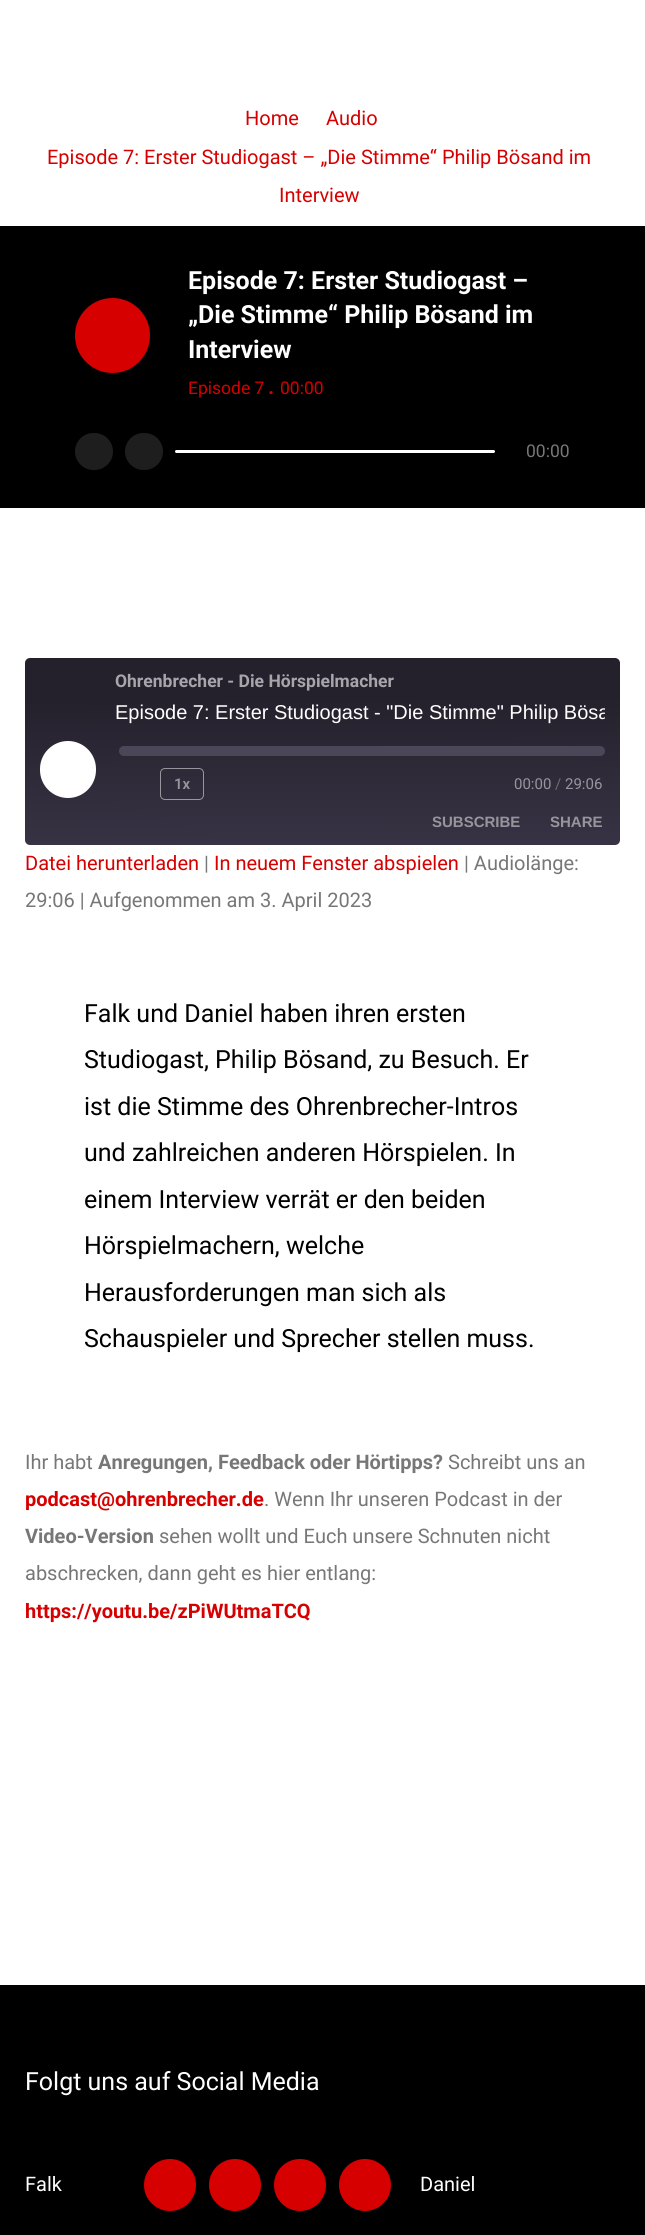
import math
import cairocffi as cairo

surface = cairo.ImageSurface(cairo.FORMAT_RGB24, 645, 2235)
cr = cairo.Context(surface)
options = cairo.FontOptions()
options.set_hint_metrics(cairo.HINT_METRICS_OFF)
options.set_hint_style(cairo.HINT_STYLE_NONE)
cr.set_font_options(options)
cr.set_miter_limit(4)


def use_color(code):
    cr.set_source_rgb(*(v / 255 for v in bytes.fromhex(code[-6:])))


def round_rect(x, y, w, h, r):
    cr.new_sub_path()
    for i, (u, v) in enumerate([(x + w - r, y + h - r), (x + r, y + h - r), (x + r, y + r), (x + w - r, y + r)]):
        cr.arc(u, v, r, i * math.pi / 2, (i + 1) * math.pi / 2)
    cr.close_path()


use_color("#ffffff")
cr.paint()
cr.select_font_face("Roboto")
cr.set_font_size(20)
use_color("#d60000")
cr.move_to(245, 125)
cr.show_text("Home")
cr.move_to(326, 125)
cr.show_text("Audio")
cr.move_to(47, 164)
cr.show_text("Episode 7: Erster Studiogast – „Die Stimme“ Philip Bösand im")
cr.move_to(279, 202)
cr.show_text("Interview")
use_color("#000000")
cr.rectangle(0, 226, 645, 282)
cr.fill()
use_color("#d60000")
cr.arc(112.5, 335.5, 37.5, 0, 2 * math.pi)
cr.fill()
cr.select_font_face("Roboto", cairo.FONT_SLANT_NORMAL, cairo.FONT_WEIGHT_BOLD)
cr.set_font_size(25)
use_color("#ffffff")
cr.move_to(188, 289)
cr.show_text("Episode 7: Erster Studiogast –")
cr.move_to(188, 323)
cr.show_text("„Die Stimme“ Philip Bösand im")
cr.move_to(188, 358)
cr.show_text("Interview")
cr.select_font_face("Roboto")
cr.set_font_size(17.5)
use_color("#d60000")
cr.move_to(188, 394)
cr.show_text("Episode 7")
cr.select_font_face("Roboto SemiBold")
cr.set_font_size(22)
cr.move_to(268, 394)
cr.show_text(".")
cr.select_font_face("Roboto")
cr.set_font_size(17.5)
cr.move_to(280, 394)
cr.show_text("00:00")
use_color("#1e1e1e")
round_rect(75, 433, 38, 37, 18.5)
cr.fill()
round_rect(125, 433, 38, 37, 18.5)
cr.fill()
use_color("#ffffff")
round_rect(175, 450, 320, 3, 1.5)
cr.fill()
use_color("#777777")
cr.move_to(526, 457)
cr.show_text("00:00")
gradient = cairo.LinearGradient(323, 847, 322, 656)
gradient.add_color_stop_rgba(0.01, 0.22, 0.2, 0.267, 1)
gradient.add_color_stop_rgba(0.78, 0.141, 0.129, 0.173, 1)
cr.set_source(gradient)
round_rect(25, 658, 595, 187, 5)
cr.fill()
cr.select_font_face("Roboto", cairo.FONT_SLANT_NORMAL, cairo.FONT_WEIGHT_BOLD)
use_color("#a7a6ab")
cr.move_to(115, 687)
cr.show_text("Ohrenbrecher - Die Hörspielmacher")
cr.save()
cr.rectangle(115, 700, 490, 31)
cr.clip()
cr.select_font_face("Liberation Sans")
cr.set_font_size(20)
use_color("#ffffff")
cr.move_to(115, 719)
cr.show_text("Episode 7: Erster Studiogast - \"Die Stimme\" Philip Bösa")
cr.restore()
use_color("#ffffff")
round_rect(40, 741, 56, 57, 28)
cr.fill()
use_color("#4c4659")
round_rect(119, 746, 486, 10, 5)
cr.fill()
round_rect(160.5, 768.5, 43, 31, 4.5)
cr.set_source_rgba(1, 1, 1, 0.5)
cr.set_line_width(1)
cr.stroke()
cr.select_font_face("Roboto SemiBold")
cr.set_font_size(15)
use_color("#97959c")
cr.move_to(174, 789)
cr.show_text("1x")
cr.select_font_face("Roboto")
cr.move_to(514, 789)
cr.show_text("00:00")
use_color("#6e6b75")
cr.move_to(555, 789)
cr.show_text("/")
use_color("#97959c")
cr.move_to(565, 789)
cr.show_text("29:06")
cr.select_font_face("Liberation Sans", cairo.FONT_SLANT_NORMAL, cairo.FONT_WEIGHT_BOLD)
cr.move_to(432, 827)
cr.show_text("SUBSCRIBE")
cr.move_to(550, 827)
cr.show_text("SHARE")
cr.select_font_face("Roboto")
cr.set_font_size(20)
use_color("#d60000")
cr.move_to(25, 870)
cr.show_text("Datei herunterladen")
use_color("#777777")
cr.move_to(204, 870)
cr.show_text("|")
use_color("#d60000")
cr.move_to(214, 870)
cr.show_text("In neuem Fenster abspielen")
use_color("#777777")
cr.move_to(464, 870)
cr.show_text("| Audiolänge:")
cr.move_to(25, 907)
cr.show_text("29:06 | Aufgenommen am 3. April 2023")
cr.set_font_size(25)
use_color("#000000")
cr.move_to(84, 1022)
cr.show_text("Falk und Daniel haben ihren ersten")
cr.move_to(84, 1068)
cr.show_text("Studiogast, Philip Bösand, zu Besuch. Er")
cr.move_to(84, 1115)
cr.show_text("ist die Stimme des Ohrenbrecher-Intros")
cr.move_to(84, 1161)
cr.show_text("und zahlreichen anderen Hörspielen. In")
cr.move_to(84, 1208)
cr.show_text("einem Interview verrät er den beiden")
cr.move_to(84, 1254)
cr.show_text("Hörspielmachern, welche")
cr.move_to(84, 1301)
cr.show_text("Herausforderungen man sich als")
cr.move_to(84, 1347)
cr.show_text("Schauspieler und Sprecher stellen muss.")
cr.set_font_size(20)
use_color("#777777")
cr.move_to(25, 1469)
cr.show_text("Ihr habt")
cr.select_font_face("Roboto", cairo.FONT_SLANT_NORMAL, cairo.FONT_WEIGHT_BOLD)
cr.move_to(98, 1469)
cr.show_text("Anregungen, Feedback oder Hörtipps?")
cr.select_font_face("Roboto")
cr.move_to(448, 1469)
cr.show_text("Schreibt uns an")
cr.select_font_face("Roboto", cairo.FONT_SLANT_NORMAL, cairo.FONT_WEIGHT_BOLD)
use_color("#d60000")
cr.move_to(25, 1506)
cr.show_text("podcast@ohrenbrecher.de")
cr.select_font_face("Roboto")
use_color("#777777")
cr.move_to(264, 1506)
cr.show_text(". Wenn Ihr unseren Podcast in der")
cr.select_font_face("Roboto", cairo.FONT_SLANT_NORMAL, cairo.FONT_WEIGHT_BOLD)
cr.move_to(25, 1543)
cr.show_text("Video-Version")
cr.select_font_face("Roboto")
cr.move_to(159, 1543)
cr.show_text("sehen wollt und Euch unsere Schnuten nicht")
cr.move_to(25, 1580)
cr.show_text("abschrecken, dann geht es hier entlang:")
cr.select_font_face("Roboto", cairo.FONT_SLANT_NORMAL, cairo.FONT_WEIGHT_BOLD)
use_color("#d60000")
cr.move_to(25, 1618)
cr.show_text("https://youtu.be/zPiWUtmaTCQ")
use_color("#000000")
cr.rectangle(0, 1985, 645, 250)
cr.fill()
cr.select_font_face("Roboto")
cr.set_font_size(25)
use_color("#ffffff")
cr.move_to(25, 2090)
cr.show_text("Folgt uns auf Social Media")
cr.set_font_size(20)
cr.move_to(25, 2191)
cr.show_text("Falk")
use_color("#d60000")
cr.new_path()
cr.arc(170, 2185, 26, 0, 2 * math.pi)
cr.fill()
cr.arc(235, 2185, 26, 0, 2 * math.pi)
cr.fill()
cr.arc(300, 2185, 26, 0, 2 * math.pi)
cr.fill()
cr.arc(365, 2185, 26, 0, 2 * math.pi)
cr.fill()
use_color("#ffffff")
cr.move_to(420, 2191)
cr.show_text("Daniel")
surface.write_to_png("result.png")
